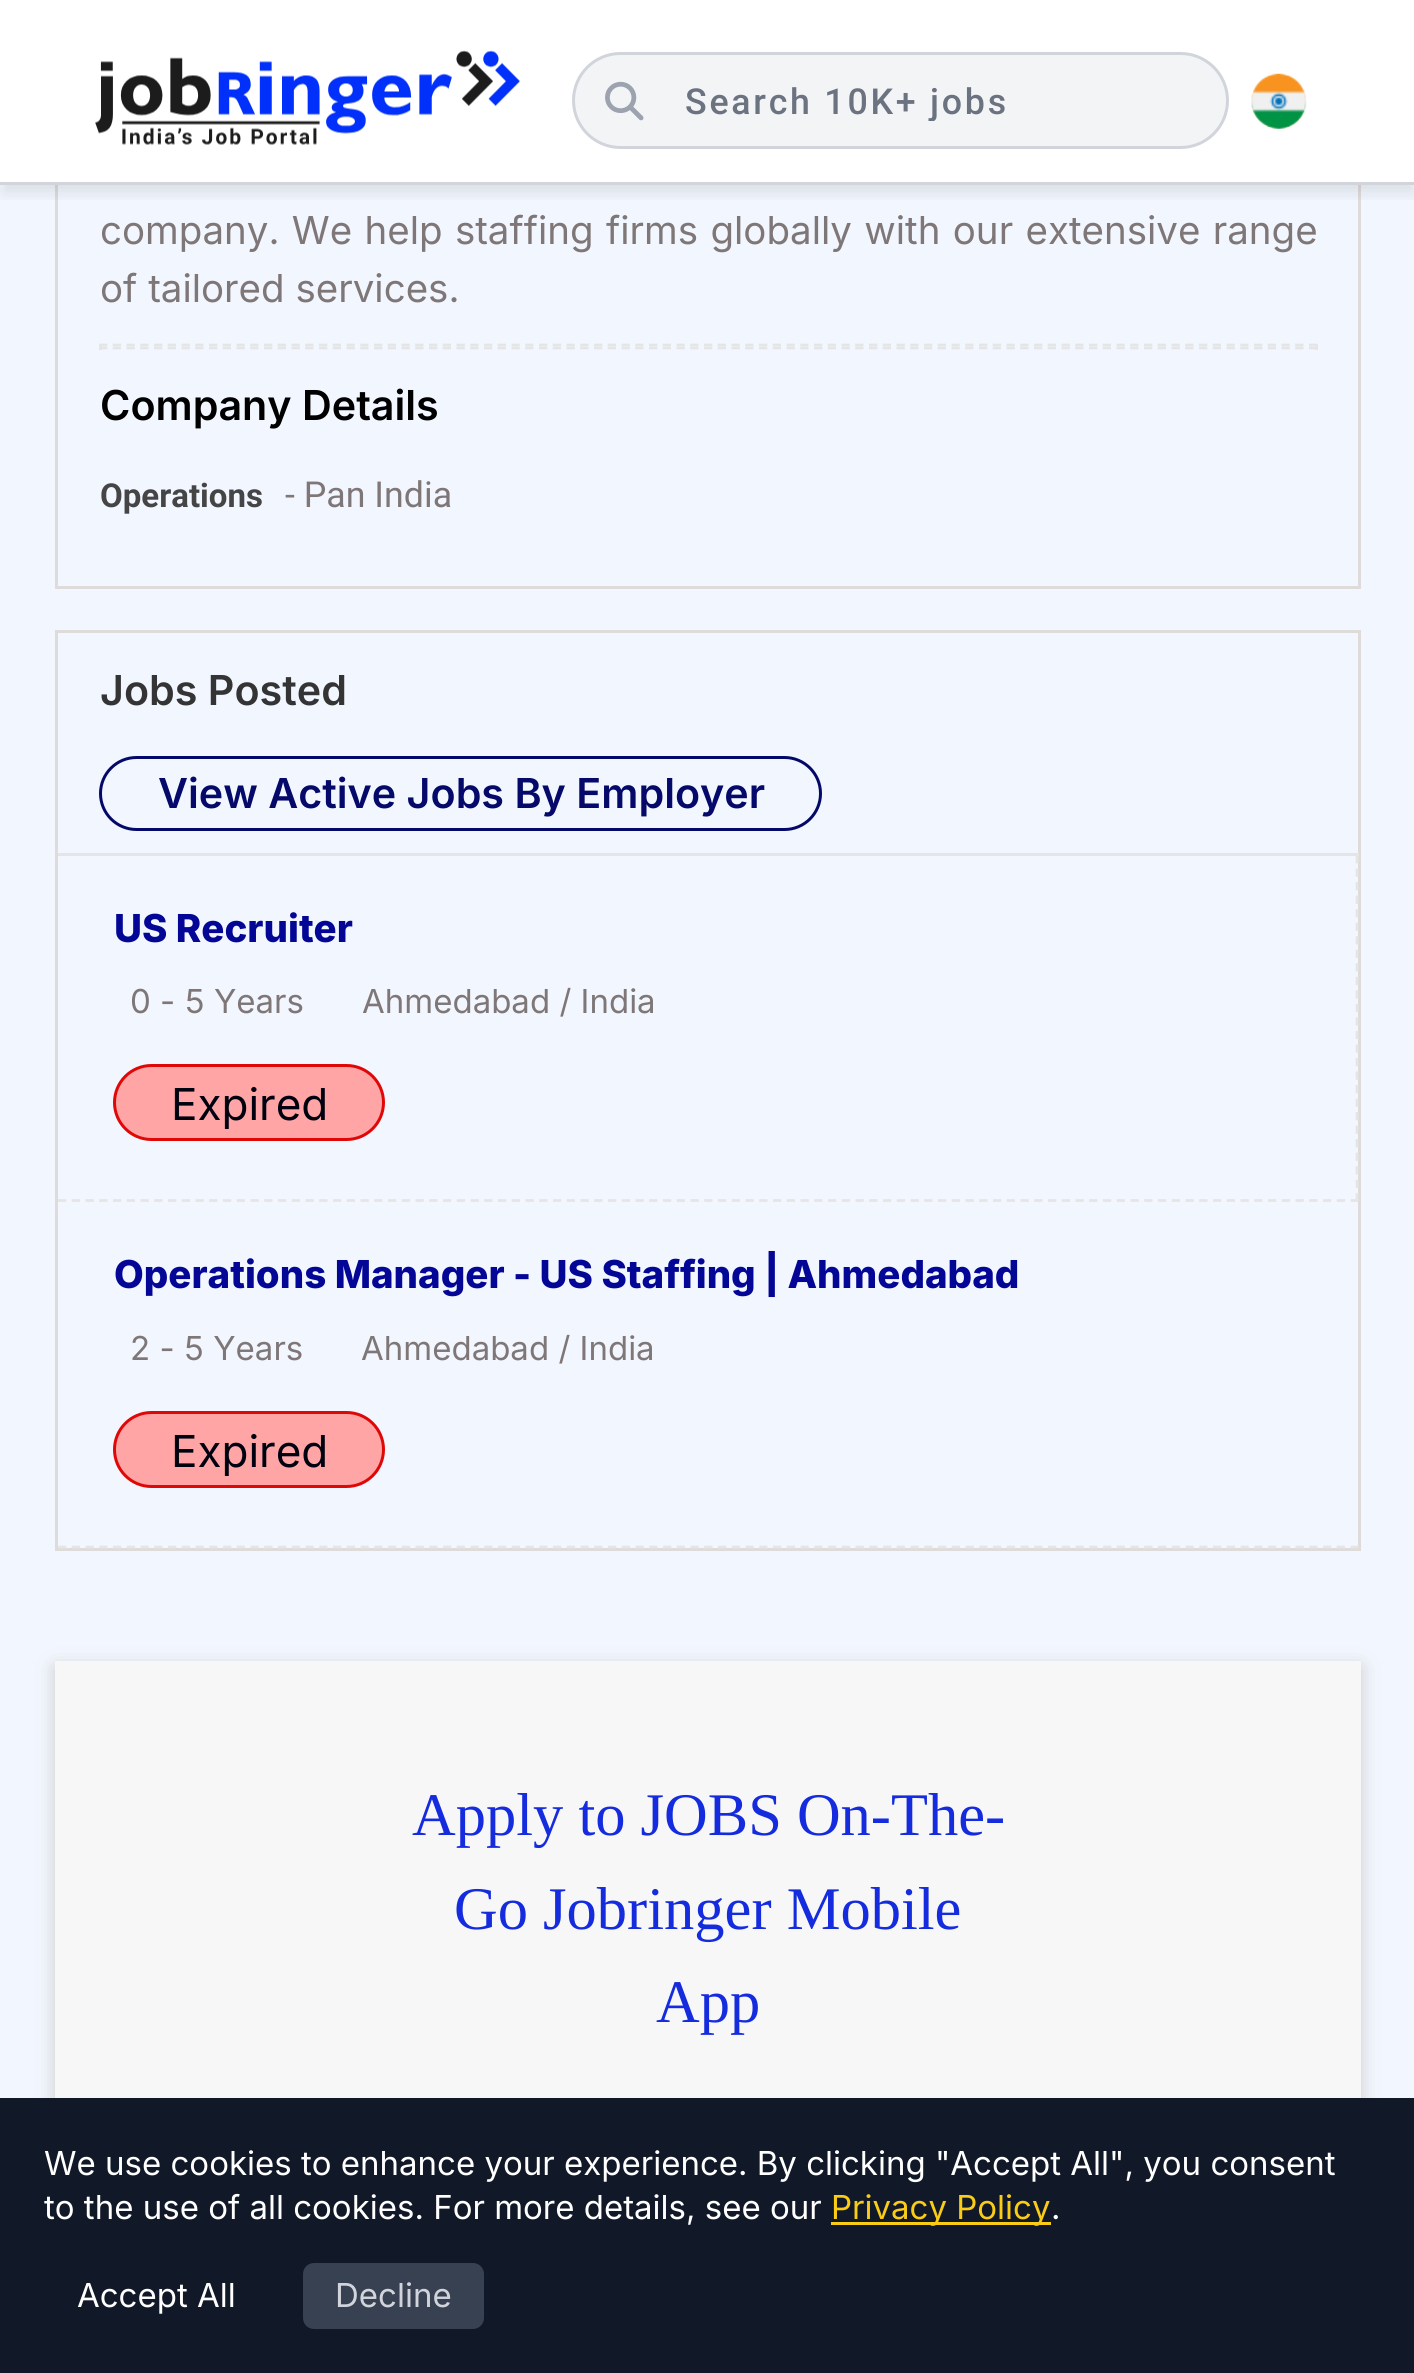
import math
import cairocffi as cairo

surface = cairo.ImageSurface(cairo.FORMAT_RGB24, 1414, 2373)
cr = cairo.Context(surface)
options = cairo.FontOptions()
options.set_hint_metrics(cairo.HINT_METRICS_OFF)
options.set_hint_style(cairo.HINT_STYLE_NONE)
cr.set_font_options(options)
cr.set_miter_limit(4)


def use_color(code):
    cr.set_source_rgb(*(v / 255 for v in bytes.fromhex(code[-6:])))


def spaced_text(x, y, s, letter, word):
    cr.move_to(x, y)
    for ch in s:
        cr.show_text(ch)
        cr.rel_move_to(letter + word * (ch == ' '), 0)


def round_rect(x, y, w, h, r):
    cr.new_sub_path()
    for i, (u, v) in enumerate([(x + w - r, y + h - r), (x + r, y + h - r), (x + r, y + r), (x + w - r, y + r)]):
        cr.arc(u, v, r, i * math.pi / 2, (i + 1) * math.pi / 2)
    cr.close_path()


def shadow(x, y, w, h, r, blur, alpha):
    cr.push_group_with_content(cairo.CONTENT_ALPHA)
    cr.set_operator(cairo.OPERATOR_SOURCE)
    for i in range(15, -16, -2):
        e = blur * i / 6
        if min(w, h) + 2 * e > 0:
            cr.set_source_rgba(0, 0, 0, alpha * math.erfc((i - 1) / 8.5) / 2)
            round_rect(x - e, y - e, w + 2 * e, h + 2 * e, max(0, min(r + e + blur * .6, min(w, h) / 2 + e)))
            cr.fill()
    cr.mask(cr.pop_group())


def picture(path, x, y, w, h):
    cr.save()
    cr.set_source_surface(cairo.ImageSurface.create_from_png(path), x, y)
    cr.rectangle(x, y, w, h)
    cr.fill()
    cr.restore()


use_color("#f2f7ff")
cr.paint()
cr.rectangle(56.5, 4.5, 1303, 583)
use_color("#e0dbdb")
cr.set_line_width(3)
cr.stroke()
use_color("#ffffff")
cr.rectangle(0, 0, 1414, 182)
cr.fill()
cr.save()
cr.rectangle(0, 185, 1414, 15)
cr.clip()
use_color("#000000")
shadow(3, 14, 1411, 179, 0, 8, 0.1)
cr.restore()
use_color("#d1d5db")
cr.rectangle(0, 182, 1414, 3)
cr.fill()
picture("img1.png", 95, 50, 425, 95)
use_color("#f3f4f6")
round_rect(573.5, 53.5, 654, 94, 47)
cr.fill_preserve()
use_color("#d1d5db")
cr.stroke()
picture("img2.png", 605, 81, 39, 40)
cr.save()
cr.rectangle(685, 80, 498, 41)
cr.clip()
cr.select_font_face("Roboto Medium")
cr.set_font_size(35.75)
use_color("#6b7280")
spaced_text(685, 114, "Search 10K+ jobs", 2.75, 0)
cr.restore()
picture("img3.png", 1251, 73, 56, 56)
cr.select_font_face("Inter")
cr.set_font_size(38.5)
use_color("#7f7777")
spaced_text(100, 244, "company. We help staffing firms globally with our extensive range", 0, 1.5)
cr.move_to(100, 302)
cr.show_text("of tailored services.")
cr.new_path()
cr.move_to(99, 345)
cr.line_to(1317, 345)
use_color("#e5e5e5")
cr.set_line_width(2.8)
cr.set_dash([8.25, 5.5])
cr.stroke()
cr.rectangle(1315, 344, 3, 6)
cr.fill()
cr.new_path()
cr.move_to(99, 348)
cr.line_to(1317, 348)
cr.stroke()
cr.rectangle(99, 344, 3, 6)
cr.fill()
cr.select_font_face("Inter SemiBold")
cr.set_font_size(41.25)
use_color("#000000")
cr.move_to(100, 420)
cr.show_text("Company Details")
cr.select_font_face("Roboto", cairo.FONT_SLANT_NORMAL, cairo.FONT_WEIGHT_BOLD)
cr.set_font_size(33)
use_color("#454545")
cr.move_to(100, 507)
cr.show_text("Operations")
cr.select_font_face("Roboto")
cr.set_font_size(35.75)
use_color("#7f7777")
cr.move_to(285, 507)
cr.show_text("- Pan India")
cr.rectangle(56.5, 631.5, 1303, 918)
use_color("#e0dbdb")
cr.set_line_width(3)
cr.set_dash([])
cr.stroke()
use_color("#e5e5e5")
cr.rectangle(58, 853, 1301, 3)
cr.fill()
cr.select_font_face("Inter SemiBold")
cr.set_font_size(41.25)
use_color("#343434")
cr.move_to(100, 705)
cr.show_text("Jobs Posted")
round_rect(100.5, 757.5, 720, 72, 36)
use_color("#040969")
cr.stroke()
use_color("#04096a")
cr.move_to(158, 808)
cr.show_text("View Active Jobs By Employer")
cr.new_path()
cr.move_to(1357, 855)
cr.line_to(1357, 1202)
use_color("#e5e5e5")
cr.set_line_width(2.8)
cr.set_dash([8.25, 5.28])
cr.stroke()
cr.new_path()
cr.move_to(58, 1200.5)
cr.line_to(1358.5, 1200.5)
cr.set_dash([8.25, 5.5])
cr.stroke()
cr.select_font_face("Inter ExtraBold")
cr.set_font_size(38.5)
use_color("#040696")
cr.move_to(114, 942)
cr.show_text("US Recruiter")
cr.select_font_face("Inter")
cr.set_font_size(33)
use_color("#7f7777")
cr.move_to(130, 1013)
cr.show_text("0 - 5 Years")
cr.move_to(362, 1013)
cr.show_text("Ahmedabad / India")
use_color("#ffa5a5")
round_rect(114.5, 1065.5, 269, 74, 37)
cr.fill_preserve()
use_color("#e00707")
cr.set_line_width(3)
cr.set_dash([])
cr.stroke()
cr.set_font_size(44)
use_color("#000110")
cr.move_to(171, 1120)
cr.show_text("Expired")
cr.new_path()
cr.move_to(58, 1547)
cr.line_to(1358.5, 1547)
use_color("#e5e5e5")
cr.set_line_width(2.8)
cr.set_dash([8.25, 5.5])
cr.stroke()
cr.select_font_face("Inter ExtraBold")
cr.set_font_size(38.5)
use_color("#040696")
cr.move_to(114, 1288)
cr.show_text("Operations Manager - US Staffing | Ahmedabad")
cr.select_font_face("Inter")
cr.set_font_size(33)
use_color("#7f7777")
cr.move_to(130, 1360)
cr.show_text("2 - 5 Years")
cr.move_to(361, 1360)
cr.show_text("Ahmedabad / India")
use_color("#ffa5a5")
round_rect(114.5, 1412.5, 269, 74, 37)
cr.fill_preserve()
use_color("#e00707")
cr.set_line_width(3)
cr.set_dash([])
cr.stroke()
cr.set_font_size(44)
use_color("#000110")
cr.move_to(171, 1467)
cr.show_text("Expired")
use_color("#cccccc")
shadow(55, 1667, 1306, 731, 0, 9.5, 1)
use_color("#f7f7f8")
cr.rectangle(55, 1661, 1306, 437)
cr.fill()
cr.select_font_face("Liberation Serif")
cr.set_font_size(60.5)
use_color("#152cde")
cr.move_to(412, 1835)
cr.show_text("Apply to JOBS On-The-")
cr.move_to(454, 1929)
cr.show_text("Go Jobringer Mobile")
cr.move_to(656, 2022)
cr.show_text("App")
use_color("#111827")
cr.rectangle(0, 2098, 1414, 275)
cr.fill()
cr.select_font_face("Inter")
cr.set_font_size(33)
use_color("#ffffff")
cr.move_to(44, 2175)
cr.show_text("We use cookies to enhance your experience. By clicking \"Accept All\", you consent")
cr.move_to(44, 2219)
cr.show_text("to the use of all cookies. For more details, see our")
use_color("#facc15")
cr.rectangle(831, 2222, 220, 3)
cr.fill()
cr.move_to(831, 2219)
cr.show_text("Privacy Policy")
use_color("#ffffff")
cr.move_to(1051, 2219)
cr.show_text(".")
cr.move_to(77, 2307)
cr.show_text("Accept All")
use_color("#374151")
round_rect(303, 2263, 181, 66, 11)
cr.fill()
use_color("#d1d5db")
cr.move_to(335, 2307)
cr.show_text("Decline")
surface.write_to_png("result.png")
